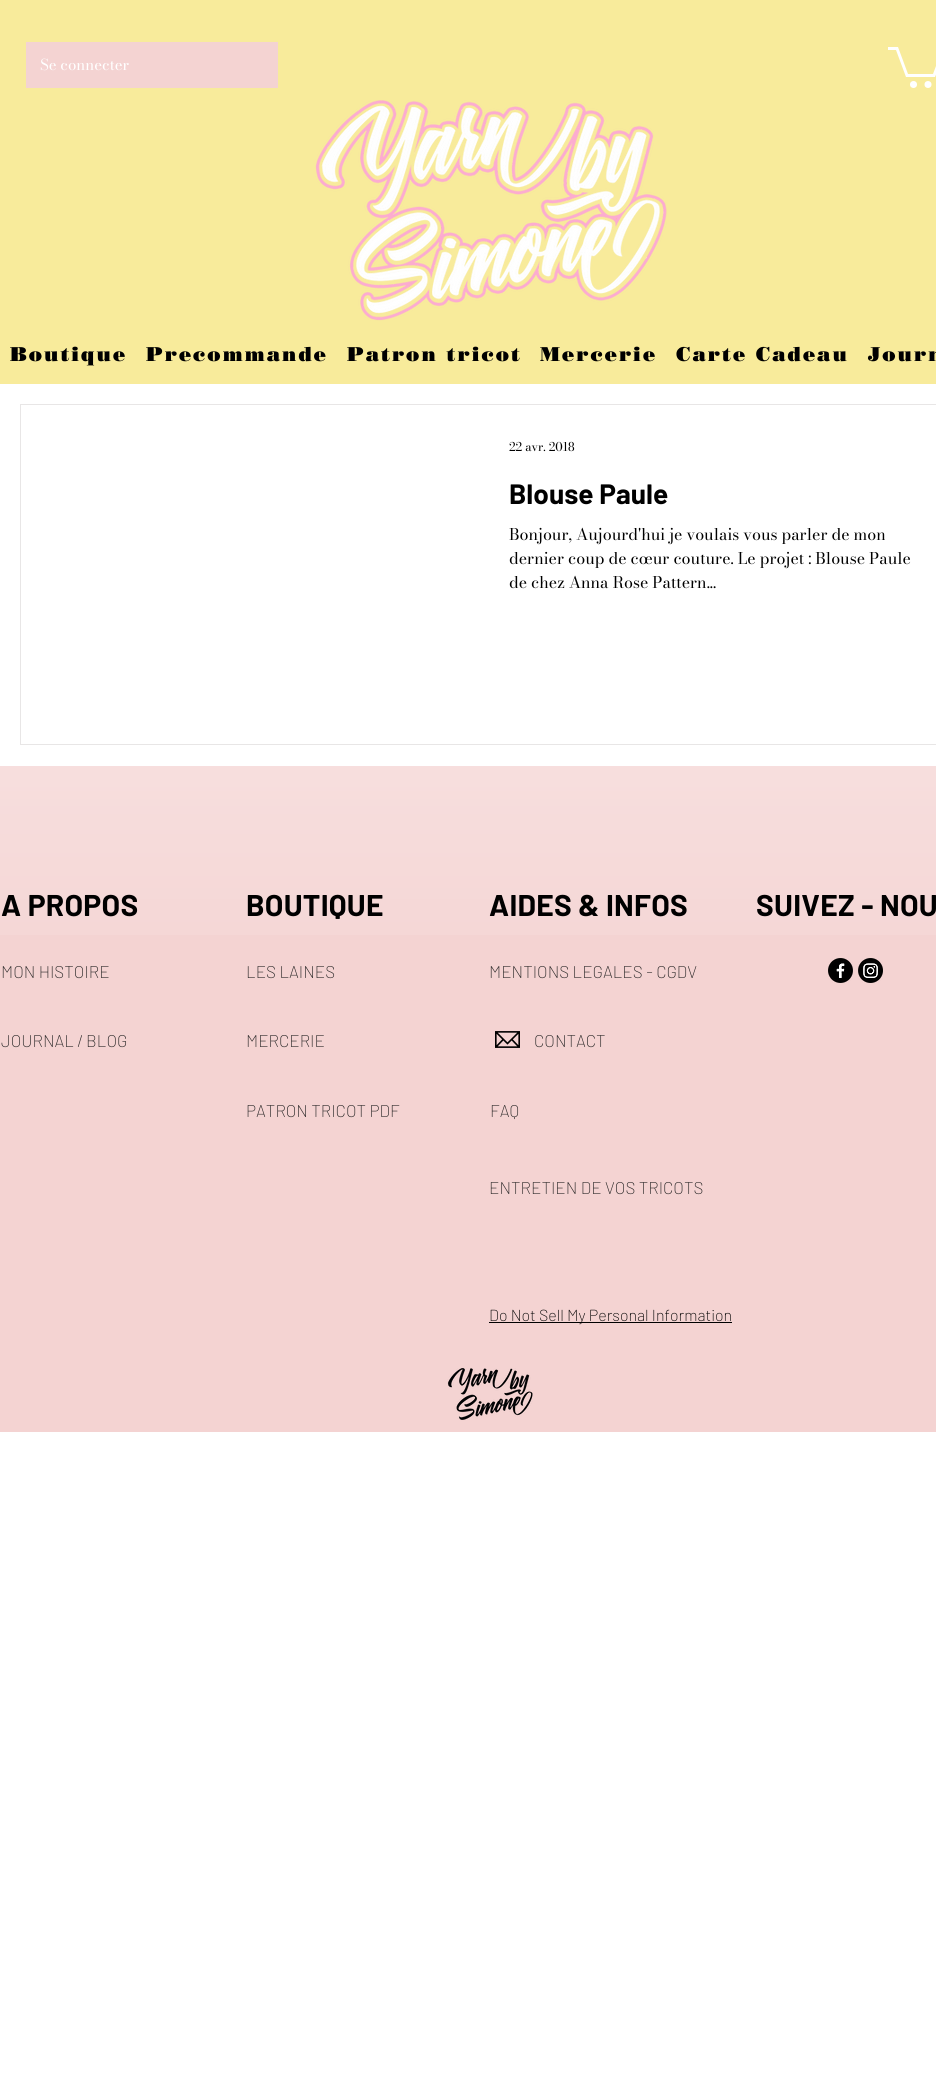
import math
import cairocffi as cairo

surface = cairo.ImageSurface(cairo.FORMAT_RGB24, 936, 2086)
cr = cairo.Context(surface)
options = cairo.FontOptions()
options.set_hint_metrics(cairo.HINT_METRICS_OFF)
options.set_hint_style(cairo.HINT_STYLE_NONE)
cr.set_font_options(options)
cr.set_miter_limit(4)


def use_color(code):
    cr.set_source_rgb(*(v / 255 for v in bytes.fromhex(code[-6:])))


def spaced_text(x, y, s, letter, word):
    cr.move_to(x, y)
    for ch in s:
        cr.show_text(ch)
        cr.rel_move_to(letter + word * (ch == ' '), 0)


def picture(path, x, y, w, h):
    cr.save()
    cr.set_source_surface(cairo.ImageSurface.create_from_png(path), x, y)
    cr.rectangle(x, y, w, h)
    cr.fill()
    cr.restore()


use_color("#ffffff")
cr.paint()
use_color("#f8eb9b")
cr.rectangle(0, 0, 936, 384)
cr.fill()
use_color("#f4d3d2")
cr.rectangle(26, 42, 252, 46)
cr.fill()
cr.select_font_face("Bodoni Moda")
cr.set_font_size(15)
use_color("#ffffff")
cr.move_to(40, 70)
cr.show_text("Se connecter")
cr.new_path()
cr.move_to(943, 58)
cr.line_to(935, 77)
cr.line_to(906, 77)
cr.line_to(896, 50)
cr.line_to(888, 50)
cr.line_to(888, 47)
cr.line_to(898, 47)
cr.line_to(908, 74)
cr.line_to(933, 74)
cr.line_to(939, 58)
cr.fill()
cr.arc(928, 84.5, 3.5, 0, 2 * math.pi)
cr.fill()
cr.arc(913.5, 84.5, 3.5, 0, 2 * math.pi)
cr.fill()
picture("img1.png", 315, 100, 352, 221)
cr.select_font_face("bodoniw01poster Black")
cr.set_font_size(20)
use_color("#000000")
spaced_text(10, 361, "Boutique", 2, 0)
spaced_text(146, 361, "Precommande", 2, 0)
spaced_text(347, 361, "Patron tricot", 2, 0)
spaced_text(540, 361, "Mercerie", 2, 0)
spaced_text(676, 361, "Carte Cadeau", 2, 0)
spaced_text(868, 361, "Journ", 2, 0)
cr.rectangle(20.5, 404.5, 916, 340)
use_color("#e8e6e6")
cr.set_line_width(1)
cr.stroke()
cr.select_font_face("Bodoni Moda")
cr.set_font_size(12)
use_color("#000000")
cr.move_to(509, 451)
cr.show_text("22 avr. 2018")
cr.select_font_face("Barlow", cairo.FONT_SLANT_NORMAL, cairo.FONT_WEIGHT_BOLD)
cr.set_font_size(28)
cr.move_to(509, 504)
cr.show_text("Blouse Paule")
cr.select_font_face("Bodoni Moda")
cr.set_font_size(16)
cr.move_to(509, 540)
cr.show_text("Bonjour, Aujourd'hui je voulais vous parler de mon")
cr.move_to(509, 564)
cr.show_text("dernier coup de cœur couture. Le projet : Blouse Paule")
cr.move_to(509, 588)
cr.show_text("de chez Anna Rose Pattern...")
use_color("#f4d3d2")
cr.rectangle(0, 766, 936, 666)
cr.fill()
picture("img2.png", 0, 766, 936, 169)
cr.select_font_face("Barlow", cairo.FONT_SLANT_NORMAL, cairo.FONT_WEIGHT_BOLD)
cr.set_font_size(30)
use_color("#000000")
spaced_text(1, 916, "A PROPOS", 0.25, 0)
spaced_text(246, 916, "BOUTIQUE", 0.25, 0)
spaced_text(489, 916, "AIDES & INFOS", 0.25, 0)
spaced_text(756, 916, "SUIVEZ - NOU", 0.25, 0)
cr.select_font_face("Barlow ExtraLight")
cr.set_font_size(17)
use_color("#282626")
cr.move_to(1, 978)
cr.show_text("MON HISTOIRE")
cr.move_to(246, 978)
cr.show_text("LES LAINES")
cr.move_to(489, 978)
cr.show_text("MENTIONS LEGALES - CGDV")
picture("img3.png", 828, 958, 25, 25)
picture("img4.png", 858, 958, 25, 25)
cr.move_to(1, 1047)
cr.show_text("JOURNAL / BLOG")
cr.move_to(246, 1047)
cr.show_text("MERCERIE")
picture("img5.png", 495, 1031, 25, 17)
cr.move_to(534, 1047)
cr.show_text("CONTACT")
cr.move_to(246, 1117)
cr.show_text("PATRON TRICOT PDF")
cr.move_to(490, 1117)
cr.show_text("FAQ")
cr.move_to(489, 1194)
cr.show_text("ENTRETIEN DE VOS TRICOTS")
use_color("#000000")
cr.rectangle(489, 1322, 243, 1)
cr.fill()
cr.set_font_size(16)
cr.move_to(489, 1321)
cr.show_text("Do Not Sell My Personal Information")
picture("img6.png", 447, 1368, 86, 52)
surface.write_to_png("result.png")
